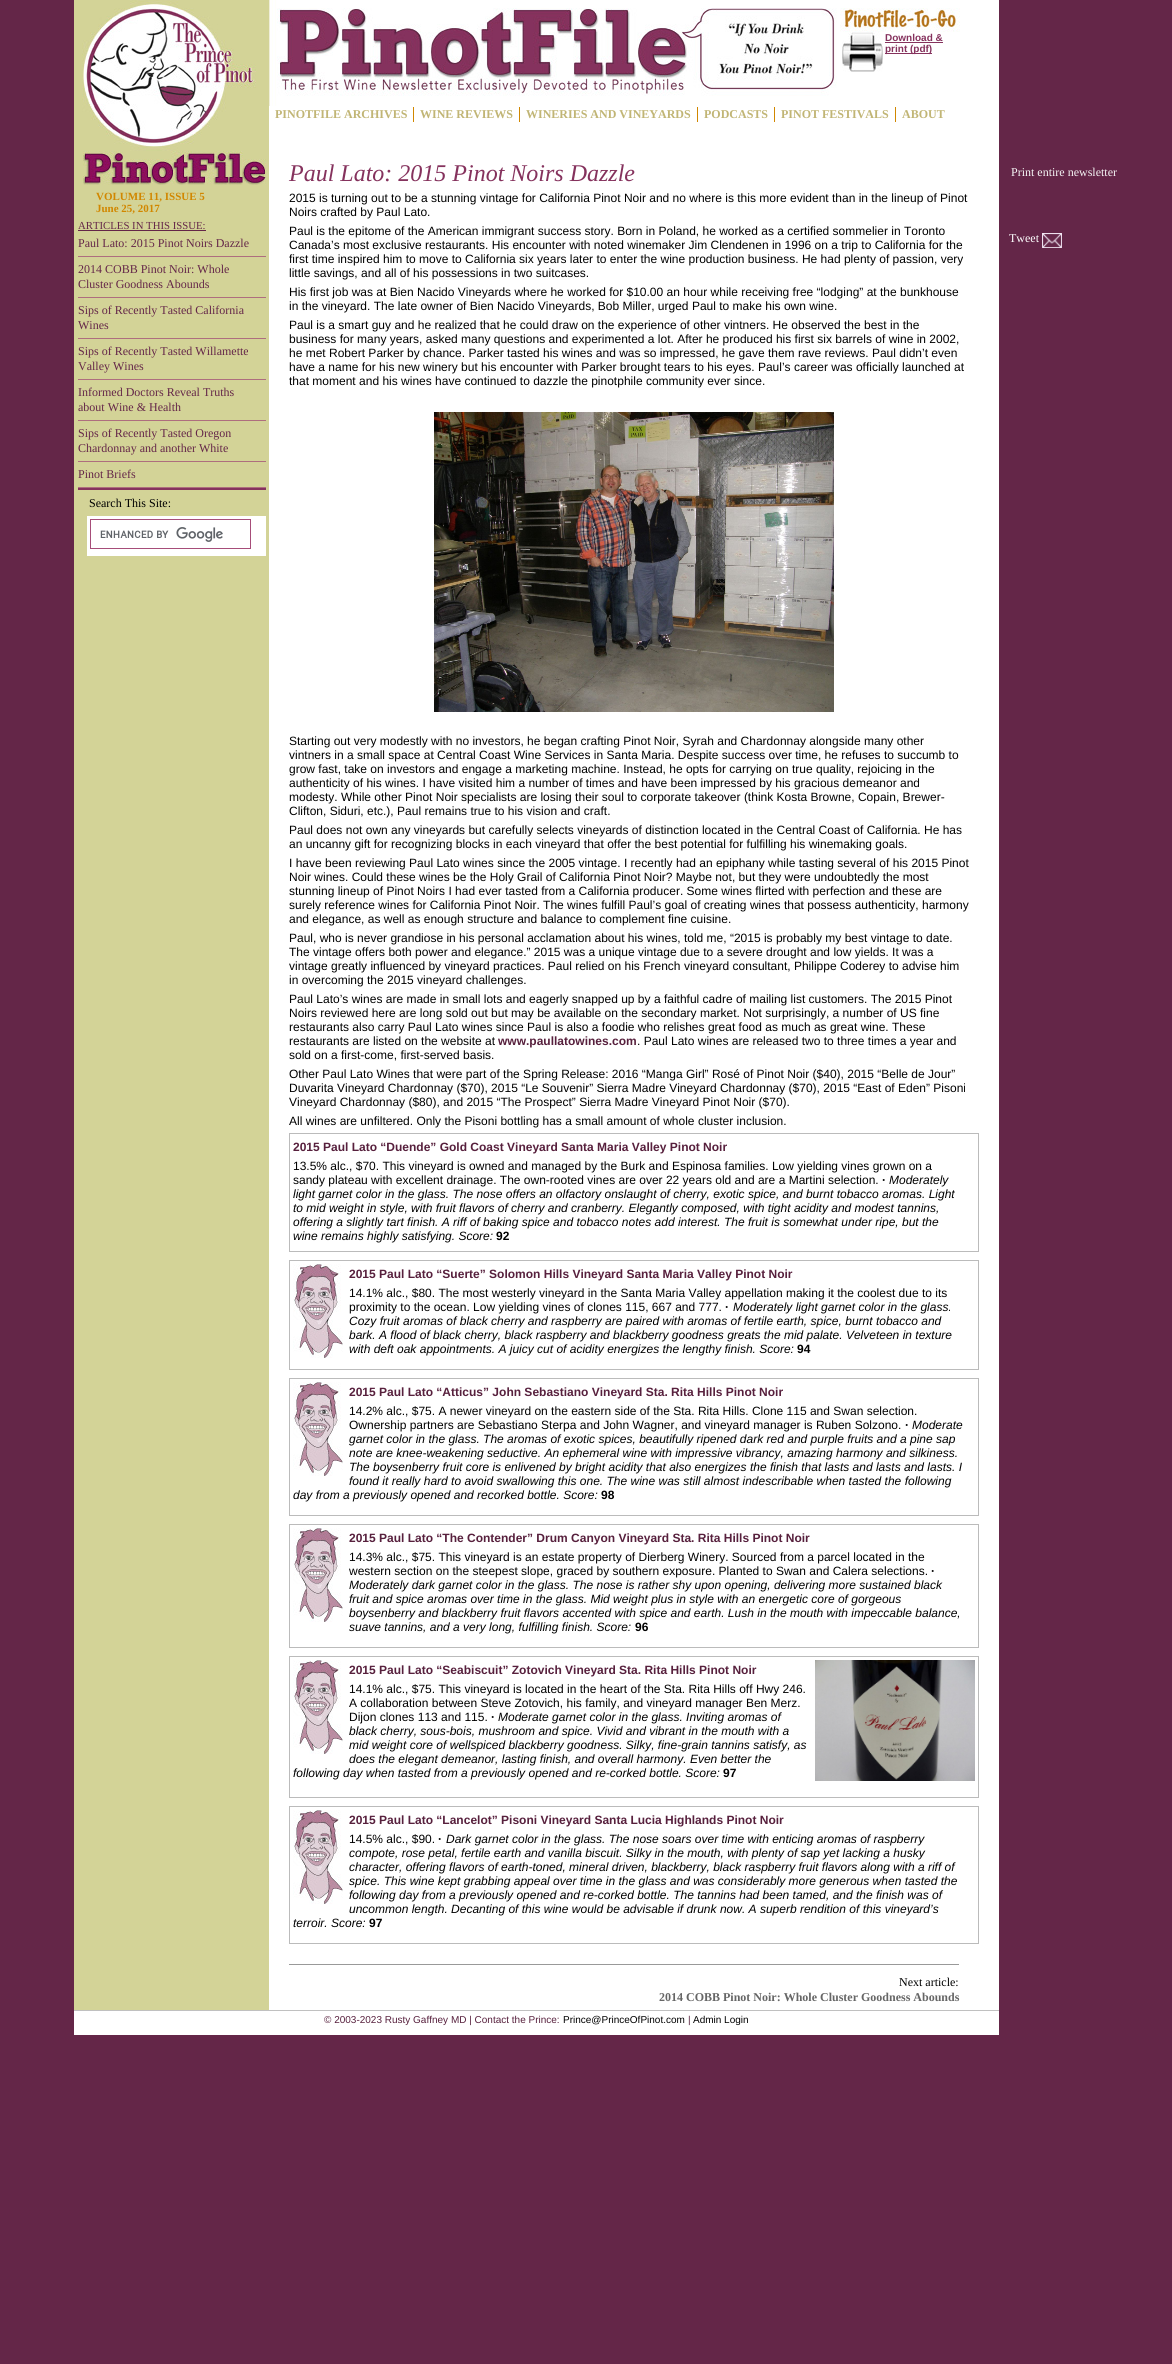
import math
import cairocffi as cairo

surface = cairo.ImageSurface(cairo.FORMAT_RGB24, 1172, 2364)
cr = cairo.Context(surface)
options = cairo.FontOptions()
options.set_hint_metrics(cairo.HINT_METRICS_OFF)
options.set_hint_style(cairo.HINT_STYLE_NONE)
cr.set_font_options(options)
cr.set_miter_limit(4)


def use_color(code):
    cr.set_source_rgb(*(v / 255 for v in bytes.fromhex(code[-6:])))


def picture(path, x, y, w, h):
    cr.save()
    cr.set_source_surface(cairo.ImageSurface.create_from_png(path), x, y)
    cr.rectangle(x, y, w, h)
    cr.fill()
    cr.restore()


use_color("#642648")
cr.paint()
use_color("#ffffff")
cr.rectangle(269, 0, 730, 2010)
cr.fill()
picture("img1.png", 269, 0, 568, 106)
picture("img2.png", 840, 8, 120, 24)
picture("img3.png", 842, 32, 41, 40)
cr.select_font_face("Liberation Sans", cairo.FONT_SLANT_NORMAL, cairo.FONT_WEIGHT_BOLD)
cr.set_font_size(10)
use_color("#85325d")
cr.move_to(885, 41)
cr.show_text("Download &")
cr.rectangle(885, 42, 58, 1)
cr.fill()
cr.rectangle(885, 53, 47, 1)
cr.fill()
cr.move_to(885, 52)
cr.show_text("print (pdf)")
cr.select_font_face("Liberation Serif", cairo.FONT_SLANT_NORMAL, cairo.FONT_WEIGHT_BOLD)
cr.set_font_size(12)
use_color("#c1b575")
cr.move_to(275, 118)
cr.show_text("PINOTFILE ARCHIVES")
use_color("#d18700")
cr.rectangle(413, 107, 1, 15)
cr.fill()
use_color("#c1b575")
cr.move_to(420, 118)
cr.show_text("WINE REVIEWS")
use_color("#d18700")
cr.rectangle(519, 107, 1, 15)
cr.fill()
use_color("#c1b575")
cr.move_to(526, 118)
cr.show_text("WINERIES AND VINEYARDS")
use_color("#d18700")
cr.rectangle(697, 107, 1, 15)
cr.fill()
use_color("#c1b575")
cr.move_to(704, 118)
cr.show_text("PODCASTS")
use_color("#d18700")
cr.rectangle(774, 107, 1, 15)
cr.fill()
use_color("#c1b575")
cr.move_to(781, 118)
cr.show_text("PINOT FESTIVALS")
use_color("#d18700")
cr.rectangle(895, 107, 1, 15)
cr.fill()
use_color("#c1b575")
cr.move_to(902, 118)
cr.show_text("ABOUT")
use_color("#d3d397")
cr.rectangle(74, 0, 195, 2010)
cr.fill()
picture("img4.png", 82, 0, 174, 151)
picture("img5.png", 83, 151, 183, 34)
cr.set_font_size(11)
use_color("#d18700")
cr.move_to(96, 200)
cr.show_text("VOLUME 11, ISSUE 5")
cr.move_to(96, 212)
cr.show_text("June 25, 2017")
use_color("#85325d")
cr.rectangle(78, 488, 188, 2)
cr.fill()
cr.select_font_face("Liberation Serif")
cr.set_font_size(10.75)
use_color("#642648")
cr.move_to(78, 229)
cr.show_text("ARTICLES IN THIS ISSUE:")
cr.rectangle(78, 230, 128, 1)
cr.fill()
use_color("#ae6e7e")
cr.rectangle(78, 256, 188, 1)
cr.fill()
cr.set_font_size(12)
use_color("#642648")
cr.move_to(78, 247)
cr.show_text("Paul Lato: 2015 Pinot Noirs Dazzle")
use_color("#ae6e7e")
cr.rectangle(78, 297, 188, 1)
cr.fill()
use_color("#642648")
cr.move_to(78, 273)
cr.show_text("2014 COBB Pinot Noir: Whole")
cr.move_to(78, 288)
cr.show_text("Cluster Goodness Abounds")
use_color("#ae6e7e")
cr.rectangle(78, 338, 188, 1)
cr.fill()
use_color("#642648")
cr.move_to(78, 314)
cr.show_text("Sips of Recently Tasted California")
cr.move_to(78, 329)
cr.show_text("Wines")
use_color("#ae6e7e")
cr.rectangle(78, 379, 188, 1)
cr.fill()
use_color("#642648")
cr.move_to(78, 355)
cr.show_text("Sips of Recently Tasted Willamette")
cr.move_to(78, 370)
cr.show_text("Valley Wines")
use_color("#ae6e7e")
cr.rectangle(78, 420, 188, 1)
cr.fill()
use_color("#642648")
cr.move_to(78, 396)
cr.show_text("Informed Doctors Reveal Truths")
cr.move_to(78, 411)
cr.show_text("about Wine & Health")
use_color("#ae6e7e")
cr.rectangle(78, 461, 188, 1)
cr.fill()
use_color("#642648")
cr.move_to(78, 437)
cr.show_text("Sips of Recently Tasted Oregon")
cr.move_to(78, 452)
cr.show_text("Chardonnay and another White")
use_color("#ae6e7e")
cr.rectangle(78, 487, 188, 1)
cr.fill()
use_color("#642648")
cr.move_to(78, 478)
cr.show_text("Pinot Briefs")
use_color("#000000")
cr.move_to(89, 507)
cr.show_text("Search This Site:")
use_color("#ffffff")
cr.rectangle(87, 516, 179, 40)
cr.fill()
cr.rectangle(90.5, 519.5, 160, 29)
use_color("#a64d79")
cr.set_line_width(1)
cr.stroke()
picture("img6.png", 100, 527, 123, 15)
cr.select_font_face("Liberation Serif", cairo.FONT_SLANT_ITALIC)
cr.set_font_size(24)
use_color("#85325d")
cr.move_to(289, 181)
cr.show_text("Paul Lato: 2015 Pinot Noirs Dazzle")
cr.select_font_face("Liberation Sans")
cr.set_font_size(12)
use_color("#000000")
cr.move_to(289, 202)
cr.show_text("2015 is turning out to be a stunning vintage for California Pinot Noir and no where is this more evident than in the lineup of Pinot")
cr.move_to(289, 216)
cr.show_text("Noirs crafted by Paul Lato.")
cr.move_to(289, 235)
cr.show_text("Paul is the epitome of the American immigrant success story. Born in Poland, he worked as a certified sommelier in Toronto")
cr.move_to(289, 249)
cr.show_text("Canada’s most exclusive restaurants. His encounter with noted winemaker Jim Clendenen in 1996 on a trip to California for the")
cr.move_to(289, 263)
cr.show_text("first time inspired him to move to California six years later to enter the wine production business. He had plenty of passion, very")
cr.move_to(289, 277)
cr.show_text("little savings, and all of his possessions in two suitcases.")
cr.move_to(289, 296)
cr.show_text("His first job was at Bien Nacido Vineyards where he worked for $10.00 an hour while receiving free “lodging” at the bunkhouse")
cr.move_to(289, 310)
cr.show_text("in the vineyard. The late owner of Bien Nacido Vineyards, Bob Miller, urged Paul to make his own wine.")
cr.move_to(289, 329)
cr.show_text("Paul is a smart guy and he realized that he could draw on the experience of other vintners. He observed the best in the")
cr.move_to(289, 343)
cr.show_text("business for many years, asked many questions and experimented a lot. After he produced his first six barrels of wine in 2002,")
cr.move_to(289, 357)
cr.show_text("he met Robert Parker by chance. Parker tasted his wines and was so impressed, he gave them rave reviews. Paul didn’t even")
cr.move_to(289, 371)
cr.show_text("have a name for his new winery but his encounter with Parker brought tears to his eyes. Paul’s career was officially launched at")
cr.move_to(289, 385)
cr.show_text("that moment and his wines have continued to dazzle the pinotphile community ever since.")
picture("img7.png", 434, 412, 400, 300)
cr.move_to(289, 745)
cr.show_text("Starting out very modestly with no investors, he began crafting Pinot Noir, Syrah and Chardonnay alongside many other")
cr.move_to(289, 759)
cr.show_text("vintners in a small space at Central Coast Wine Services in Santa Maria. Despite success over time, he refuses to succumb to")
cr.move_to(289, 773)
cr.show_text("grow fast, take on investors and engage a marketing machine. Instead, he opts for carrying on true quality, rejoicing in the")
cr.move_to(289, 787)
cr.show_text("authenticity of his wines. I have visited him a number of times and have been impressed by his gracious demeanor and")
cr.move_to(289, 801)
cr.show_text("modesty. While other Pinot Noir specialists are losing their soul to corporate takeover (think Kosta Browne, Copain, Brewer-")
cr.move_to(289, 815)
cr.show_text("Clifton, Siduri, etc.), Paul remains true to his vision and craft.")
cr.move_to(289, 834)
cr.show_text("Paul does not own any vineyards but carefully selects vineyards of distinction located in the Central Coast of California. He has")
cr.move_to(289, 848)
cr.show_text("an uncanny gift for recognizing blocks in each vineyard that offer the best potential for fulfilling his winemaking goals.")
cr.move_to(289, 867)
cr.show_text("I have been reviewing Paul Lato wines since the 2005 vintage. I recently had an epiphany while tasting several of his 2015 Pinot")
cr.move_to(289, 881)
cr.show_text("Noir wines. Could these wines be the Holy Grail of California Pinot Noir? Maybe not, but they were undoubtedly the most")
cr.move_to(289, 895)
cr.show_text("stunning lineup of Pinot Noirs I had ever tasted from a California producer. Some wines flirted with perfection and these are")
cr.move_to(289, 909)
cr.show_text("surely reference wines for California Pinot Noir. The wines fulfill Paul’s goal of creating wines that possess authenticity, harmony")
cr.move_to(289, 923)
cr.show_text("and elegance, as well as enough structure and balance to complement fine cuisine.")
cr.move_to(289, 942)
cr.show_text("Paul, who is never grandiose in his personal acclamation about his wines, told me, “2015 is probably my best vintage to date.")
cr.move_to(289, 956)
cr.show_text("The vintage offers both power and elegance.” 2015 was a unique vintage due to a severe drought and low yields. It was a")
cr.move_to(289, 970)
cr.show_text("vintage greatly influenced by vineyard practices. Paul relied on his French vineyard consultant, Philippe Coderey to advise him")
cr.move_to(289, 984)
cr.show_text("in overcoming the 2015 vineyard challenges.")
cr.move_to(289, 1003)
cr.show_text("Paul Lato’s wines are made in small lots and eagerly snapped up by a faithful cadre of mailing list customers. The 2015 Pinot")
cr.move_to(289, 1017)
cr.show_text("Noirs reviewed here are long sold out but may be available on the secondary market. Not surprisingly, a number of US fine")
cr.move_to(289, 1031)
cr.show_text("restaurants also carry Paul Lato wines since Paul is also a foodie who relishes great food as much as great wine. These")
cr.move_to(289, 1045)
cr.show_text("restaurants are listed on the website at")
cr.select_font_face("Liberation Sans", cairo.FONT_SLANT_NORMAL, cairo.FONT_WEIGHT_BOLD)
use_color("#57203d")
cr.move_to(498, 1045)
cr.show_text("www.paullatowines.com")
cr.select_font_face("Liberation Sans")
use_color("#000000")
cr.move_to(637, 1045)
cr.show_text(". Paul Lato wines are released two to three times a year and")
cr.move_to(289, 1059)
cr.show_text("sold on a first-come, first-served basis.")
cr.move_to(289, 1078)
cr.show_text("Other Paul Lato Wines that were part of the Spring Release: 2016 “Manga Girl” Rosé of Pinot Noir ($40), 2015 “Belle de Jour”")
cr.move_to(289, 1092)
cr.show_text("Duvarita Vineyard Chardonnay ($70), 2015 “Le Souvenir” Sierra Madre Vineyard Chardonnay ($70), 2015 “East of Eden” Pisoni")
cr.move_to(289, 1106)
cr.show_text("Vineyard Chardonnay ($80), and 2015 “The Prospect” Sierra Madre Vineyard Pinot Noir ($70).")
cr.move_to(289, 1125)
cr.show_text("All wines are unfiltered. Only the Pisoni bottling has a small amount of whole cluster inclusion.")
cr.rectangle(289.5, 1133.5, 689, 118)
use_color("#bbbbbb")
cr.stroke()
cr.select_font_face("Liberation Sans", cairo.FONT_SLANT_NORMAL, cairo.FONT_WEIGHT_BOLD)
use_color("#57203d")
cr.move_to(293, 1151)
cr.show_text("2015 Paul Lato “Duende” Gold Coast Vineyard Santa Maria Valley Pinot Noir")
cr.select_font_face("Liberation Sans")
use_color("#000000")
cr.move_to(293, 1170)
cr.show_text("13.5% alc., $70. This vineyard is owned and managed by the Burk and Espinosa families. Low yielding vines grown on a")
cr.move_to(293, 1184)
cr.show_text("sandy plateau with excellent drainage. The own-rooted vines are over 22 years old and are a Martini selection.")
cr.select_font_face("Liberation Sans", cairo.FONT_SLANT_NORMAL, cairo.FONT_WEIGHT_BOLD)
cr.move_to(882, 1184)
cr.show_text("·")
cr.select_font_face("Liberation Sans", cairo.FONT_SLANT_ITALIC)
cr.move_to(889, 1184)
cr.show_text("Moderately")
cr.move_to(293, 1198)
cr.show_text("light garnet color in the glass. The nose offers an olfactory onslaught of cherry, exotic spice, and burnt tobacco aromas. Light")
cr.move_to(293, 1212)
cr.show_text("to mid weight in style, with fruit flavors of cherry and cranberry. Elegantly composed, with tight acidity and modest tannins,")
cr.move_to(293, 1226)
cr.show_text("offering a slightly tart finish. A riff of baking spice and tobacco notes add interest. The fruit is somewhat under ripe, but the")
cr.move_to(293, 1240)
cr.show_text("wine remains highly satisfying. Score:")
cr.select_font_face("Liberation Sans", cairo.FONT_SLANT_NORMAL, cairo.FONT_WEIGHT_BOLD)
cr.move_to(496, 1240)
cr.show_text("92")
cr.rectangle(289.5, 1260.5, 689, 109)
use_color("#bbbbbb")
cr.stroke()
picture("img8.png", 293, 1264, 50, 94)
use_color("#57203d")
cr.move_to(349, 1278)
cr.show_text("2015 Paul Lato “Suerte” Solomon Hills Vineyard Santa Maria Valley Pinot Noir")
cr.select_font_face("Liberation Sans")
use_color("#000000")
cr.move_to(349, 1297)
cr.show_text("14.1% alc., $80. The most westerly vineyard in the Santa Maria Valley appellation making it the coolest due to its")
cr.move_to(349, 1311)
cr.show_text("proximity to the ocean. Low yielding vines of clones 115, 667 and 777.")
cr.select_font_face("Liberation Sans", cairo.FONT_SLANT_NORMAL, cairo.FONT_WEIGHT_BOLD)
cr.move_to(725, 1311)
cr.show_text("·")
cr.select_font_face("Liberation Sans", cairo.FONT_SLANT_ITALIC)
cr.move_to(733, 1311)
cr.show_text("Moderately light garnet color in the glass.")
cr.move_to(349, 1325)
cr.show_text("Cozy fruit aromas of black cherry and raspberry are paired with aromas of fertile earth, spice, burnt tobacco and")
cr.move_to(349, 1339)
cr.show_text("bark. A flood of black cherry, black raspberry and blackberry goodness greats the mid palate. Velveteen in texture")
cr.move_to(349, 1353)
cr.show_text("with deft oak appointments. A juicy cut of acidity energizes the lengthy finish. Score:")
cr.select_font_face("Liberation Sans", cairo.FONT_SLANT_NORMAL, cairo.FONT_WEIGHT_BOLD)
cr.move_to(797, 1353)
cr.show_text("94")
cr.rectangle(289.5, 1378.5, 689, 137)
use_color("#bbbbbb")
cr.stroke()
picture("img8.png", 293, 1382, 50, 94)
use_color("#57203d")
cr.move_to(349, 1396)
cr.show_text("2015 Paul Lato “Atticus” John Sebastiano Vineyard Sta. Rita Hills Pinot Noir")
cr.select_font_face("Liberation Sans")
use_color("#000000")
cr.move_to(349, 1415)
cr.show_text("14.2% alc., $75. A newer vineyard on the eastern side of the Sta. Rita Hills. Clone 115 and Swan selection.")
cr.move_to(349, 1429)
cr.show_text("Ownership partners are Sebastiano Sterpa and John Wagner, and vineyard manager is Ruben Solzono.")
cr.select_font_face("Liberation Sans", cairo.FONT_SLANT_NORMAL, cairo.FONT_WEIGHT_BOLD)
cr.move_to(905, 1429)
cr.show_text("·")
cr.select_font_face("Liberation Sans", cairo.FONT_SLANT_ITALIC)
cr.move_to(912, 1429)
cr.show_text("Moderate")
cr.move_to(349, 1443)
cr.show_text("garnet color in the glass. The aromas of exotic spices, beautifully ripened dark red and purple fruits and a pine sap")
cr.move_to(349, 1457)
cr.show_text("note are knee-weakening seductive. An ephemeral wine with impressive vibrancy, amazing harmony and silkiness.")
cr.move_to(349, 1471)
cr.show_text("The boysenberry fruit core is enlivened by bright acidity that also energizes the finish that lasts and lasts and lasts. I")
cr.move_to(349, 1485)
cr.show_text("found it really hard to avoid swallowing this one. The wine was still almost indescribable when tasted the following")
cr.move_to(293, 1499)
cr.show_text("day from a previously opened and recorked bottle. Score:")
cr.select_font_face("Liberation Sans", cairo.FONT_SLANT_NORMAL, cairo.FONT_WEIGHT_BOLD)
cr.move_to(601, 1499)
cr.show_text("98")
cr.rectangle(289.5, 1524.5, 689, 123)
use_color("#bbbbbb")
cr.stroke()
picture("img8.png", 293, 1528, 50, 94)
use_color("#57203d")
cr.move_to(349, 1542)
cr.show_text("2015 Paul Lato “The Contender” Drum Canyon Vineyard Sta. Rita Hills Pinot Noir")
cr.select_font_face("Liberation Sans")
use_color("#000000")
cr.move_to(349, 1561)
cr.show_text("14.3% alc., $75. This vineyard is an estate property of Dierberg Winery. Sourced from a parcel located in the")
cr.move_to(349, 1575)
cr.show_text("western section on the steepest slope, graced by southern exposure. Planted to Swan and Calera selections.")
cr.select_font_face("Liberation Sans", cairo.FONT_SLANT_NORMAL, cairo.FONT_WEIGHT_BOLD)
cr.move_to(931, 1575)
cr.show_text("·")
cr.select_font_face("Liberation Sans", cairo.FONT_SLANT_ITALIC)
cr.move_to(349, 1589)
cr.show_text("Moderately dark garnet color in the glass. The nose is rather shy upon opening, delivering more sustained black")
cr.move_to(349, 1603)
cr.show_text("fruit and spice aromas over time in the glass. Mid weight plus in style with an energetic core of gorgeous")
cr.move_to(349, 1617)
cr.show_text("boysenberry and blackberry fruit flavors accented with spice and earth. Lush in the mouth with impeccable balance,")
cr.move_to(349, 1631)
cr.show_text("suave tannins, and a very long, fulfilling finish. Score:")
cr.select_font_face("Liberation Sans", cairo.FONT_SLANT_NORMAL, cairo.FONT_WEIGHT_BOLD)
cr.move_to(635, 1631)
cr.show_text("96")
cr.rectangle(289.5, 1656.5, 689, 141)
use_color("#bbbbbb")
cr.stroke()
picture("img8.png", 293, 1660, 50, 94)
use_color("#57203d")
cr.move_to(349, 1674)
cr.show_text("2015 Paul Lato “Seabiscuit” Zotovich Vineyard Sta. Rita Hills Pinot Noir")
picture("img9.png", 815, 1660, 160, 121)
cr.select_font_face("Liberation Sans")
use_color("#000000")
cr.move_to(349, 1693)
cr.show_text("14.1% alc., $75. This vineyard is located in the heart of the Sta. Rita Hills off Hwy 246.")
cr.move_to(349, 1707)
cr.show_text("A collaboration between Steve Zotovich, his family, and vineyard manager Ben Merz.")
cr.move_to(349, 1721)
cr.show_text("Dijon clones 113 and 115.")
cr.select_font_face("Liberation Sans", cairo.FONT_SLANT_NORMAL, cairo.FONT_WEIGHT_BOLD)
cr.move_to(491, 1721)
cr.show_text("·")
cr.select_font_face("Liberation Sans", cairo.FONT_SLANT_ITALIC)
cr.move_to(498, 1721)
cr.show_text("Moderate garnet color in the glass. Inviting aromas of")
cr.move_to(349, 1735)
cr.show_text("black cherry, sous-bois, mushroom and spice. Vivid and vibrant in the mouth with a")
cr.move_to(349, 1749)
cr.show_text("mid weight core of wellspiced blackberry goodness. Silky, fine-grain tannins satisfy, as")
cr.move_to(349, 1763)
cr.show_text("does the elegant demeanor, lasting finish, and overall harmony. Even better the")
cr.move_to(293, 1777)
cr.show_text("following day when tasted from a previously opened and re-corked bottle. Score:")
cr.select_font_face("Liberation Sans", cairo.FONT_SLANT_NORMAL, cairo.FONT_WEIGHT_BOLD)
cr.move_to(723, 1777)
cr.show_text("97")
cr.rectangle(289.5, 1806.5, 689, 137)
use_color("#bbbbbb")
cr.stroke()
picture("img8.png", 293, 1810, 50, 94)
use_color("#57203d")
cr.move_to(349, 1824)
cr.show_text("2015 Paul Lato “Lancelot” Pisoni Vineyard Santa Lucia Highlands Pinot Noir")
cr.select_font_face("Liberation Sans")
use_color("#000000")
cr.move_to(349, 1843)
cr.show_text("14.5% alc., $90.")
cr.select_font_face("Liberation Sans", cairo.FONT_SLANT_NORMAL, cairo.FONT_WEIGHT_BOLD)
cr.move_to(438, 1843)
cr.show_text("·")
cr.select_font_face("Liberation Sans", cairo.FONT_SLANT_ITALIC)
cr.move_to(446, 1843)
cr.show_text("Dark garnet color in the glass. The nose soars over time with enticing aromas of raspberry")
cr.move_to(349, 1857)
cr.show_text("compote, rose petal, fertile earth and vanilla biscuit. Silky in the mouth, with plenty of sap yet lacking a husky")
cr.move_to(349, 1871)
cr.show_text("character, offering flavors of earth-toned, mineral driven, blackberry, black raspberry fruit flavors along with a riff of")
cr.move_to(349, 1885)
cr.show_text("spice. This wine kept grabbing appeal over time in the glass and was considerably more generous when tasted the")
cr.move_to(349, 1899)
cr.show_text("following day from a previously opened and re-corked bottle. The tannins had been tamed, and the finish was of")
cr.move_to(349, 1913)
cr.show_text("uncommon length. Decanting of this wine would be advisable if drunk now. A superb rendition of this vineyard’s")
cr.move_to(293, 1927)
cr.show_text("terroir. Score:")
cr.select_font_face("Liberation Sans", cairo.FONT_SLANT_NORMAL, cairo.FONT_WEIGHT_BOLD)
cr.move_to(369, 1927)
cr.show_text("97")
use_color("#999999")
cr.rectangle(289, 1964, 670, 1)
cr.fill()
cr.select_font_face("Liberation Serif")
use_color("#000000")
cr.move_to(899, 1986)
cr.show_text("Next article:")
cr.select_font_face("Liberation Serif", cairo.FONT_SLANT_NORMAL, cairo.FONT_WEIGHT_BOLD)
use_color("#666666")
cr.move_to(659, 2001)
cr.show_text("2014 COBB Pinot Noir: Whole Cluster Goodness Abounds")
cr.select_font_face("Liberation Serif")
use_color("#f5f5f5")
cr.move_to(1011, 176)
cr.show_text("Print entire newsletter")
use_color("#ffffff")
cr.move_to(1009, 242)
cr.show_text("Tweet")
picture("img10.png", 1042, 233, 20, 15)
cr.rectangle(74, 2011, 925, 24)
cr.fill()
use_color("#c0c0c0")
cr.rectangle(74, 2010, 925, 1)
cr.fill()
cr.select_font_face("Liberation Sans")
cr.set_font_size(10)
use_color("#57203d")
cr.move_to(324, 2023)
cr.show_text("© 2003-2023 Rusty Gaffney MD | Contact the Prince:")
use_color("#000000")
cr.move_to(563, 2023)
cr.show_text("Prince@PrinceOfPinot.com")
use_color("#57203d")
cr.move_to(688, 2023)
cr.show_text("|")
use_color("#000000")
cr.move_to(693, 2023)
cr.show_text("Admin Login")
surface.write_to_png("result.png")
